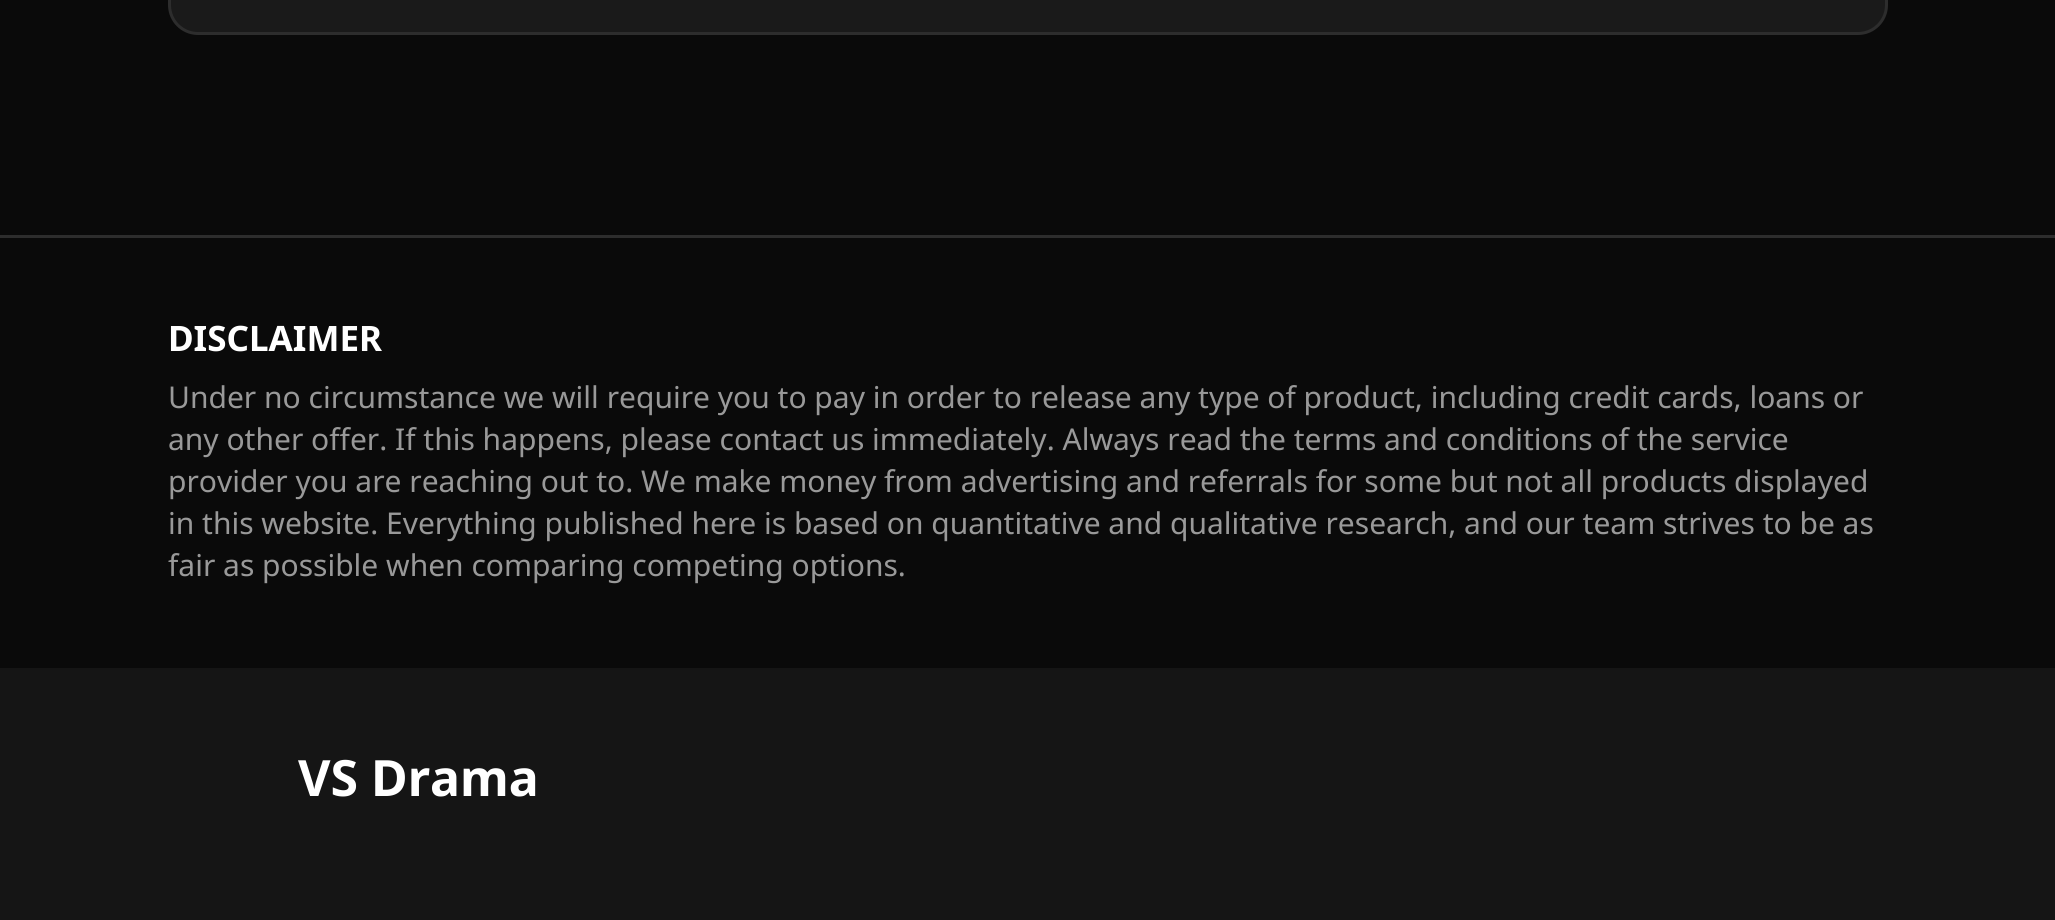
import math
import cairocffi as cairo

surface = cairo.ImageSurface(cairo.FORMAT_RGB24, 2055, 920)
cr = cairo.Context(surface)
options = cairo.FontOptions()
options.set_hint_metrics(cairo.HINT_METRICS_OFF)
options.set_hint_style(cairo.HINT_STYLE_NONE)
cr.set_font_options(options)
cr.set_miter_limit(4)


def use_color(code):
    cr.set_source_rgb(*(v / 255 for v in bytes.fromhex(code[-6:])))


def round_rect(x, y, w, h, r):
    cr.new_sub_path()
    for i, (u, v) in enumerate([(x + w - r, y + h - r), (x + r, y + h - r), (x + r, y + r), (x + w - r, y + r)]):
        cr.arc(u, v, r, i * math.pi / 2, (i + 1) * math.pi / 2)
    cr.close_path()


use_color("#0a0a0a")
cr.paint()
use_color("#1a1a1a")
round_rect(169.5, -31.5, 1717, 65, 28.5)
cr.fill_preserve()
use_color("#2d2d2d")
cr.set_line_width(3)
cr.stroke()
cr.rectangle(0, 235, 2055, 3)
cr.fill()
cr.select_font_face("Noto Sans", cairo.FONT_SLANT_NORMAL, cairo.FONT_WEIGHT_BOLD)
cr.set_font_size(35)
use_color("#ffffff")
cr.move_to(168, 351)
cr.show_text("DISCLAIMER")
cr.select_font_face("Noto Sans")
cr.set_font_size(30)
use_color("#999999")
cr.move_to(168, 408)
cr.show_text("Under no circumstance we will require you to pay in order to release any type of product, including credit cards, loans or")
cr.move_to(168, 450)
cr.show_text("any other offer. If this happens, please contact us immediately. Always read the terms and conditions of the service")
cr.move_to(168, 492)
cr.show_text("provider you are reaching out to. We make money from advertising and referrals for some but not all products displayed")
cr.move_to(168, 534)
cr.show_text("in this website. Everything published here is based on quantitative and qualitative research, and our team strives to be as")
cr.move_to(168, 576)
cr.show_text("fair as possible when comparing competing options.")
use_color("#151515")
cr.rectangle(0, 668, 2055, 252)
cr.fill()
cr.select_font_face("Noto Sans", cairo.FONT_SLANT_NORMAL, cairo.FONT_WEIGHT_BOLD)
cr.set_font_size(50)
use_color("#ffffff")
cr.move_to(298, 796)
cr.show_text("VS Drama")
surface.write_to_png("result.png")
